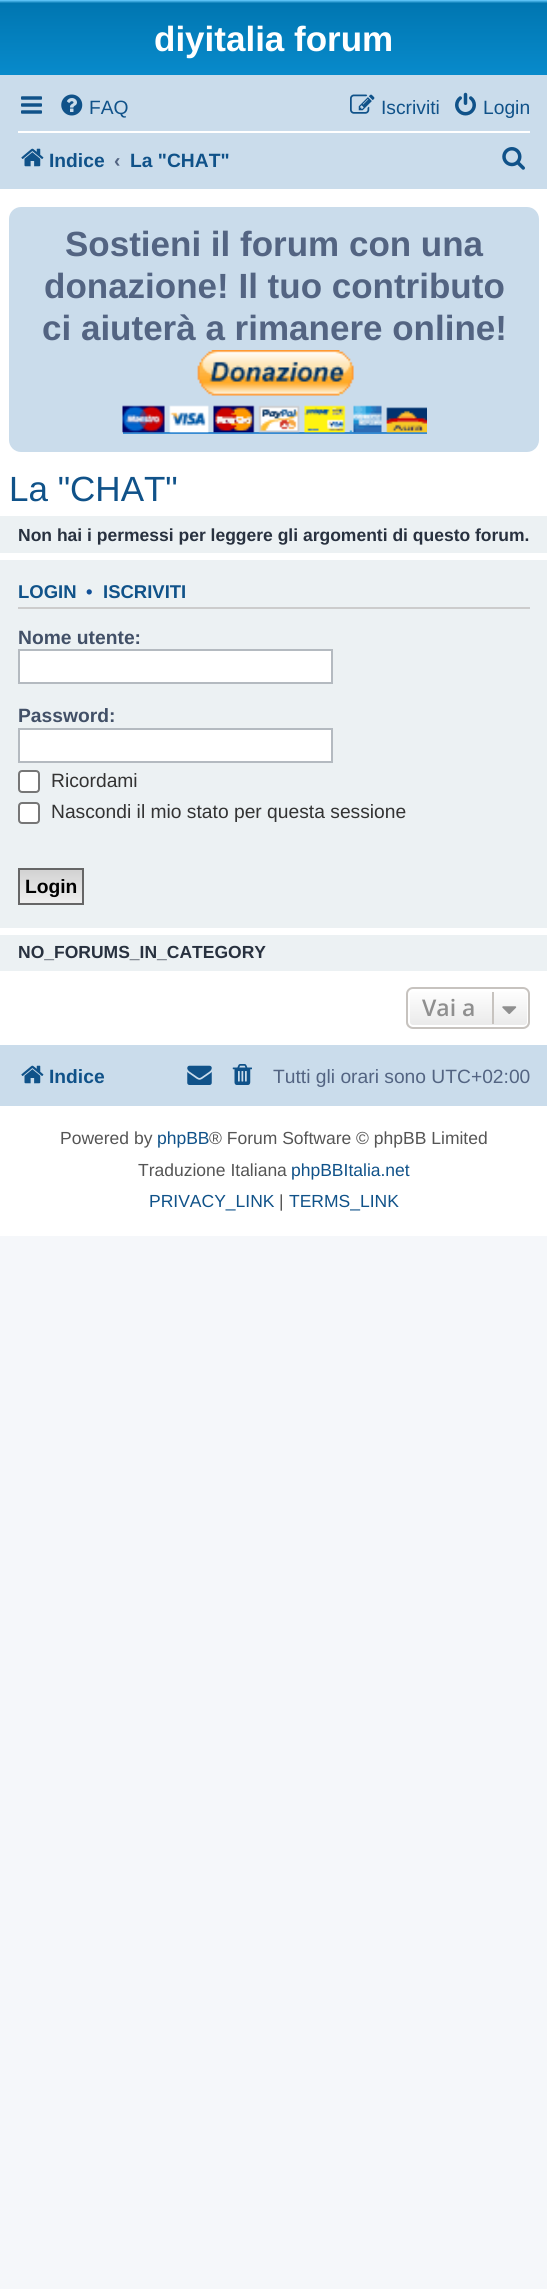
import math
import cairocffi as cairo

surface = cairo.ImageSurface(cairo.FORMAT_RGB24, 547, 2289)
cr = cairo.Context(surface)
options = cairo.FontOptions()
options.set_hint_metrics(cairo.HINT_METRICS_OFF)
options.set_hint_style(cairo.HINT_STYLE_NONE)
cr.set_font_options(options)
cr.set_miter_limit(4)


def use_color(code):
    cr.set_source_rgb(*(v / 255 for v in bytes.fromhex(code[-6:])))


def round_rect(x, y, w, h, r):
    cr.new_sub_path()
    for i, (u, v) in enumerate([(x + w - r, y + h - r), (x + r, y + h - r), (x + r, y + r), (x + w - r, y + r)]):
        cr.arc(u, v, r, i * math.pi / 2, (i + 1) * math.pi / 2)
    cr.close_path()


def picture(path, x, y, w, h):
    cr.save()
    cr.set_source_surface(cairo.ImageSurface.create_from_png(path), x, y)
    cr.rectangle(x, y, w, h)
    cr.fill()
    cr.restore()


use_color("#f5f7fa")
cr.paint()
use_color("#ffffff")
cr.rectangle(0, 189, 547, 1047)
cr.fill()
gradient = cairo.LinearGradient(274, 0, 274, 161)
gradient.add_color_stop_rgba(0, 0.416, 0.808, 1, 1)
gradient.add_color_stop_rgba(0.02, 0, 0.463, 0.694, 1)
gradient.add_color_stop_rgba(1, 0.071, 0.639, 0.922, 1)
cr.set_source(gradient)
cr.rectangle(0, 0, 547, 75)
cr.fill()
cr.select_font_face("Liberation Sans", cairo.FONT_SLANT_NORMAL, cairo.FONT_WEIGHT_BOLD)
cr.set_font_size(35)
use_color("#ffffff")
cr.move_to(154, 51)
cr.show_text("diyitalia forum")
use_color("#cadceb")
cr.rectangle(0, 75, 547, 114)
cr.fill()
picture("img1.png", 21, 96, 21, 18)
picture("img2.png", 61, 94, 22, 22)
cr.select_font_face("Liberation Sans")
cr.set_font_size(19.25)
use_color("#105289")
cr.move_to(89, 114)
cr.show_text("FAQ")
picture("img3.png", 350, 94, 25, 20)
cr.move_to(381, 114)
cr.show_text("Iscriviti")
picture("img4.png", 455, 92, 21, 24)
cr.move_to(483, 114)
cr.show_text("Login")
use_color("#ffffff")
cr.rectangle(18, 131, 512, 2)
cr.fill()
picture("img5.png", 21, 148, 23, 19)
cr.select_font_face("Liberation Sans", cairo.FONT_SLANT_NORMAL, cairo.FONT_WEIGHT_BOLD)
use_color("#105289")
cr.move_to(49, 167)
cr.show_text("Indice")
use_color("#536482")
cr.move_to(114, 167)
cr.show_text("‹")
use_color("#105289")
cr.move_to(130, 167)
cr.show_text("La \"CHAT\"")
picture("img6.png", 502, 147, 23, 23)
use_color("#cadceb")
round_rect(9, 207, 530, 245, 12)
cr.fill()
cr.set_font_size(35)
use_color("#536482")
cr.move_to(65, 256)
cr.show_text("Sostieni il forum con una")
cr.move_to(44, 298)
cr.show_text("donazione! Il tuo contributo")
cr.move_to(42, 340)
cr.show_text("ci aiuterà a rimanere online!")
use_color("#368ad2")
cr.rectangle(123, 432, 304, 2)
cr.fill()
picture("img7.png", 122, 350, 305, 83)
cr.select_font_face("Liberation Sans")
use_color("#105289")
cr.move_to(9, 501)
cr.show_text("La \"CHAT\"")
use_color("#ecf1f3")
cr.rectangle(0, 516, 547, 37)
cr.fill()
cr.select_font_face("Liberation Sans", cairo.FONT_SLANT_NORMAL, cairo.FONT_WEIGHT_BOLD)
cr.set_font_size(17.5)
use_color("#28313f")
cr.move_to(18, 541)
cr.show_text("Non hai i permessi per leggere gli argomenti di questo forum.")
use_color("#ecf1f3")
cr.rectangle(0, 560, 547, 368)
cr.fill()
use_color("#cccccc")
cr.rectangle(18, 607, 512, 2)
cr.fill()
cr.set_font_size(18.5)
use_color("#105289")
cr.move_to(18, 598)
cr.show_text("LOGIN")
use_color("#115098")
cr.move_to(86, 598)
cr.show_text("•")
use_color("#105289")
cr.move_to(103, 598)
cr.show_text("ISCRIVITI")
cr.set_font_size(19.25)
use_color("#425067")
cr.move_to(18, 644)
cr.show_text("Nome utente:")
use_color("#ffffff")
cr.rectangle(19, 650, 313, 33)
cr.fill_preserve()
use_color("#b4bac0")
cr.stroke()
use_color("#425067")
cr.move_to(18, 722)
cr.show_text("Password:")
use_color("#ffffff")
cr.rectangle(19, 729, 313, 33)
cr.fill_preserve()
use_color("#b4bac0")
cr.stroke()
use_color("#ffffff")
round_rect(19, 771, 20, 21, 3)
cr.fill_preserve()
use_color("#767676")
cr.stroke()
cr.select_font_face("Liberation Sans")
use_color("#333333")
cr.move_to(51, 787)
cr.show_text("Ricordami")
use_color("#ffffff")
round_rect(19, 803, 20, 20, 3)
cr.fill_preserve()
use_color("#767676")
cr.stroke()
use_color("#333333")
cr.move_to(51, 818)
cr.show_text("Nascondi il mio stato per questa sessione")
gradient = cairo.LinearGradient(51, 870, 51, 903)
gradient.add_color_stop_rgba(0, 0.824, 0.824, 0.824, 1)
gradient.add_color_stop_rgba(1, 0.937, 0.937, 0.937, 1)
cr.set_source(gradient)
cr.rectangle(20, 870, 62, 33)
cr.fill()
cr.rectangle(19, 869, 64, 35)
use_color("#666666")
cr.stroke()
cr.select_font_face("Liberation Sans", cairo.FONT_SLANT_NORMAL, cairo.FONT_WEIGHT_BOLD)
use_color("#000000")
cr.move_to(25, 893)
cr.show_text("Login")
use_color("#ecf1f3")
cr.rectangle(0, 935, 547, 36)
cr.fill()
cr.set_font_size(17.5)
use_color("#28313f")
cr.move_to(18, 958)
cr.show_text("NO_FORUMS_IN_CATEGORY")
cr.save()
round_rect(406, 987, 124, 42, 7)
cr.clip()
gradient = cairo.LinearGradient(468, 989, 468, 1027)
gradient.add_color_stop_rgba(0, 1, 1, 1, 1)
gradient.add_color_stop_rgba(1, 0.914, 0.914, 0.914, 1)
cr.set_source(gradient)
cr.rectangle(406, 989, 124, 38)
cr.fill()
cr.restore()
round_rect(409, 990, 119, 36, 4)
use_color("#ffffff")
cr.stroke()
round_rect(407, 988, 122, 40, 6)
use_color("#c7c3bf")
cr.stroke()
cr.select_font_face("Open Sans SemiBold")
cr.set_font_size(23)
use_color("#8f8f8f")
cr.move_to(422, 1016)
cr.show_text("Vai a")
use_color("#c7c3bf")
cr.rectangle(492, 992, 2, 32)
cr.fill()
picture("img8.png", 502, 1006, 15, 8)
use_color("#cadceb")
cr.rectangle(0, 1045, 547, 61)
cr.fill()
picture("img5.png", 21, 1065, 23, 19)
cr.select_font_face("Liberation Sans", cairo.FONT_SLANT_NORMAL, cairo.FONT_WEIGHT_BOLD)
cr.set_font_size(19.25)
use_color("#105289")
cr.move_to(49, 1083)
cr.show_text("Indice")
picture("img9.png", 187, 1065, 25, 20)
picture("img10.png", 232, 1064, 20, 21)
cr.select_font_face("Liberation Sans")
use_color("#536482")
cr.move_to(273, 1083)
cr.show_text("Tutti gli orari sono UTC+02:00")
cr.set_font_size(17.5)
use_color("#555555")
cr.move_to(60, 1144)
cr.show_text("Powered by")
use_color("#105289")
cr.move_to(157, 1144)
cr.show_text("phpBB")
use_color("#555555")
cr.move_to(209, 1144)
cr.show_text("® Forum Software © phpBB Limited")
cr.move_to(138, 1176)
cr.show_text("Traduzione Italiana")
use_color("#105289")
cr.move_to(291, 1176)
cr.show_text("phpBBItalia.net")
cr.move_to(149, 1207)
cr.show_text("PRIVACY_LINK")
use_color("#555555")
cr.move_to(279, 1207)
cr.show_text("|")
use_color("#105289")
cr.move_to(289, 1207)
cr.show_text("TERMS_LINK")
surface.write_to_png("result.png")
